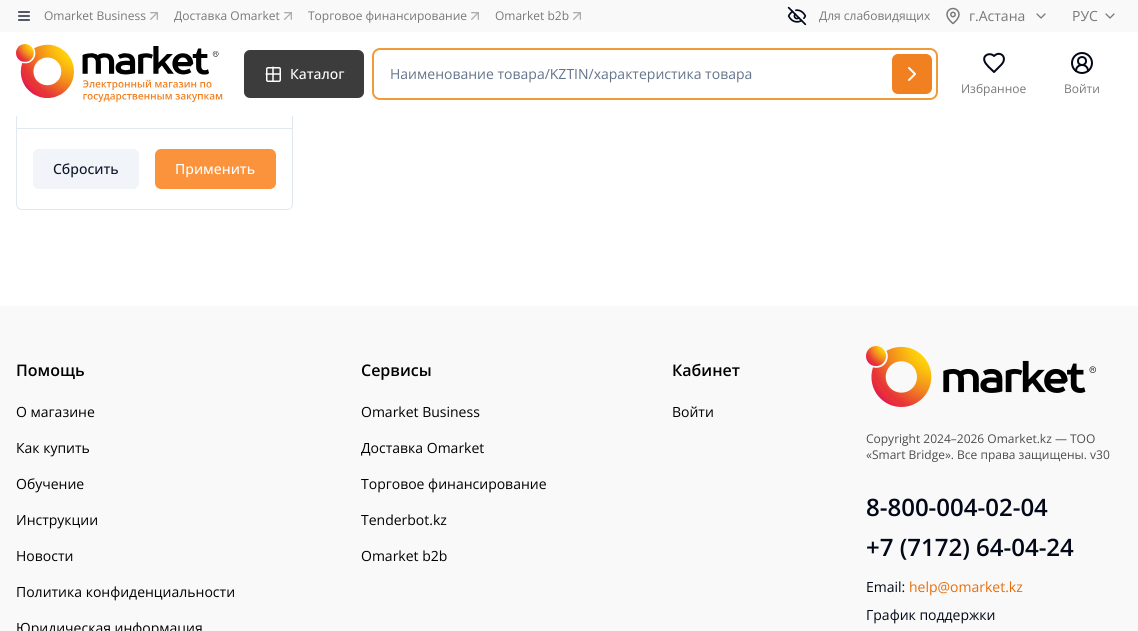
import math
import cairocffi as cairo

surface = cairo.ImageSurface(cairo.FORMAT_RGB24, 1138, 631)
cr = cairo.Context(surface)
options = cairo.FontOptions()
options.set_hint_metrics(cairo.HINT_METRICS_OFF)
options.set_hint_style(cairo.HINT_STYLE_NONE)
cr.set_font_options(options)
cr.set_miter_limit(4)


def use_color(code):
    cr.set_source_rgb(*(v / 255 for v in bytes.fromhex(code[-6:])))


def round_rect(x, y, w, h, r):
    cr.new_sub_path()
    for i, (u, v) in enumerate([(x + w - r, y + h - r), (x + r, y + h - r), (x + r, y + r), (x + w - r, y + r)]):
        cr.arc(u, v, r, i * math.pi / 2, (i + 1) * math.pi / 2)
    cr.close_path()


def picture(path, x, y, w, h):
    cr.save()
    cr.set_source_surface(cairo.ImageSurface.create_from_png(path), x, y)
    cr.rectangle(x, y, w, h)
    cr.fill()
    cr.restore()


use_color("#ffffff")
cr.paint()
cr.rectangle(16.5, -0.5, 276, 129)
use_color("#e2e8f0")
cr.set_line_width(1)
cr.stroke()
use_color("#ffffff")
cr.rectangle(16, 32, 277, 84)
cr.fill()
use_color("#faf9f9")
cr.rectangle(0, 0, 1138, 32)
cr.fill()
picture("img1.png", 18, 11, 12, 10)
cr.select_font_face("Open Sans")
cr.set_font_size(12)
use_color("#787878")
cr.move_to(44, 20)
cr.show_text("Omarket Business")
picture("img2.png", 150, 12, 8, 8)
cr.move_to(174, 20)
cr.show_text("Доставка Omarket")
picture("img2.png", 284, 12, 8, 8)
cr.move_to(308, 20)
cr.show_text("Торговое финансирование")
picture("img2.png", 471, 12, 8, 8)
cr.move_to(495, 20)
cr.show_text("Omarket b2b")
picture("img2.png", 573, 12, 8, 8)
picture("img3.png", 787, 6, 20, 20)
cr.move_to(819, 20)
cr.show_text("Для слабовидящих")
picture("img4.png", 946, 7, 14, 18)
cr.set_font_size(14)
cr.move_to(969, 21)
cr.show_text("г.Астана")
cr.new_path()
cr.move_to(1037, 14)
cr.line_to(1041, 18)
cr.line_to(1045, 14)
cr.set_line_width(1.3)
cr.set_line_cap(cairo.LINE_CAP_ROUND)
cr.set_line_join(cairo.LINE_JOIN_ROUND)
cr.stroke()
cr.move_to(1072, 21)
cr.show_text("РУС")
cr.new_path()
cr.move_to(1106, 14)
cr.line_to(1110, 18)
cr.line_to(1114, 14)
cr.stroke()
picture("img5.png", 16, 44, 207, 58)
use_color("#3c3c3c")
round_rect(244, 50, 120, 48, 6)
cr.fill()
picture("img6.png", 265, 66, 16, 16)
cr.select_font_face("Open Sans Medium")
use_color("#ffffff")
cr.move_to(290, 79)
cr.show_text("Каталог")
round_rect(373, 49, 564, 50, 7)
use_color("#f19b38")
cr.set_line_width(2)
cr.set_line_cap(cairo.LINE_CAP_BUTT)
cr.set_line_join(cairo.LINE_JOIN_MITER)
cr.stroke()
cr.select_font_face("Open Sans")
use_color("#64748b")
cr.move_to(390, 79)
cr.show_text("Наименование товара/KZTIN/характеристика товара")
use_color("#f18021")
round_rect(892, 54, 40, 40, 6)
cr.fill()
cr.new_path()
cr.move_to(909, 80)
cr.line_to(915, 74)
cr.line_to(909, 68)
use_color("#ffffff")
cr.set_line_cap(cairo.LINE_CAP_ROUND)
cr.set_line_join(cairo.LINE_JOIN_ROUND)
cr.stroke()
cr.new_path()
cr.move_to(1001, 65)
cr.curve_to(1008.5, 57.5, 1000, 50, 994, 56)
cr.curve_to(990, 52, 982.5, 55, 984.5, 61)
cr.curve_to(985.5, 64.5, 991.5, 69.5, 994, 72)
cr.close_path()
use_color("#020817")
cr.stroke()
cr.set_font_size(12)
use_color("#787878")
cr.move_to(961, 93)
cr.show_text("Избранное")
cr.new_path()
cr.move_to(1088, 71)
cr.curve_to(1088, 63, 1076, 63, 1076, 71)
use_color("#020817")
cr.stroke()
cr.arc(1082, 61, 4, 0, 2 * math.pi)
cr.set_line_cap(cairo.LINE_CAP_BUTT)
cr.set_line_join(cairo.LINE_JOIN_MITER)
cr.stroke()
cr.arc(1082, 63, 10, 0, 2 * math.pi)
cr.stroke()
use_color("#787878")
cr.move_to(1064, 93)
cr.show_text("Войти")
cr.new_path()
cr.move_to(16.5, 128.5)
cr.line_to(292.5, 128.5)
cr.line_to(292.5, 204)
cr.curve_to(292.5, 207, 290, 209.5, 287, 209.5)
cr.line_to(22, 209.5)
cr.curve_to(19, 209.5, 16.5, 207, 16.5, 204)
cr.close_path()
use_color("#e2e8f0")
cr.set_line_width(1)
cr.stroke()
use_color("#f1f5f9")
round_rect(33, 149, 106, 40, 6)
cr.fill()
cr.select_font_face("Open Sans Medium")
cr.set_font_size(14)
use_color("#0f172a")
cr.move_to(53, 174)
cr.show_text("Сбросить")
use_color("#fb923c")
round_rect(155, 149, 121, 40, 6)
cr.fill()
use_color("#ffffff")
cr.move_to(175, 174)
cr.show_text("Применить")
use_color("#faf9f9")
cr.rectangle(0, 306, 1138, 325)
cr.fill()
cr.select_font_face("Open Sans SemiBold")
cr.set_font_size(16)
use_color("#000000")
cr.move_to(16, 376)
cr.show_text("Помощь")
cr.select_font_face("Open Sans")
cr.set_font_size(14)
cr.move_to(16, 417)
cr.show_text("О магазине")
cr.move_to(16, 453)
cr.show_text("Как купить")
cr.move_to(16, 489)
cr.show_text("Обучение")
cr.move_to(16, 525)
cr.show_text("Инструкции")
cr.move_to(16, 561)
cr.show_text("Новости")
cr.move_to(16, 597)
cr.show_text("Политика конфиденциальности")
cr.move_to(16, 633)
cr.show_text("Юридическая информация")
cr.select_font_face("Open Sans SemiBold")
cr.set_font_size(16)
cr.move_to(361, 376)
cr.show_text("Сервисы")
cr.select_font_face("Open Sans")
cr.set_font_size(14)
cr.move_to(361, 417)
cr.show_text("Omarket Business")
cr.move_to(361, 453)
cr.show_text("Доставка Omarket")
cr.move_to(361, 489)
cr.show_text("Торговое финансирование")
cr.move_to(361, 525)
cr.show_text("Tenderbot.kz")
cr.move_to(361, 561)
cr.show_text("Omarket b2b")
cr.select_font_face("Open Sans SemiBold")
cr.set_font_size(16)
cr.move_to(672, 376)
cr.show_text("Кабинет")
cr.select_font_face("Open Sans")
cr.set_font_size(14)
cr.move_to(672, 417)
cr.show_text("Войти")
picture("img7.png", 866, 346, 230, 61)
cr.set_font_size(12)
use_color("#4d4d4d")
cr.move_to(866, 443)
cr.show_text("Copyright 2024–2026 Omarket.kz — ТОО")
cr.move_to(866, 459)
cr.show_text("«Smart Bridge». Все права защищены. v30")
cr.select_font_face("Open Sans SemiBold")
cr.set_font_size(24)
use_color("#020817")
cr.move_to(866, 516)
cr.show_text("8-800-004-02-04")
cr.move_to(866, 556)
cr.show_text("+7 (7172) 64-04-24")
cr.select_font_face("Open Sans")
cr.set_font_size(14)
cr.move_to(866, 592)
cr.show_text("Email:")
use_color("#e86d07")
cr.move_to(909, 592)
cr.show_text("help@omarket.kz")
use_color("#020817")
cr.move_to(866, 620)
cr.show_text("График поддержки")
surface.write_to_png("result.png")
